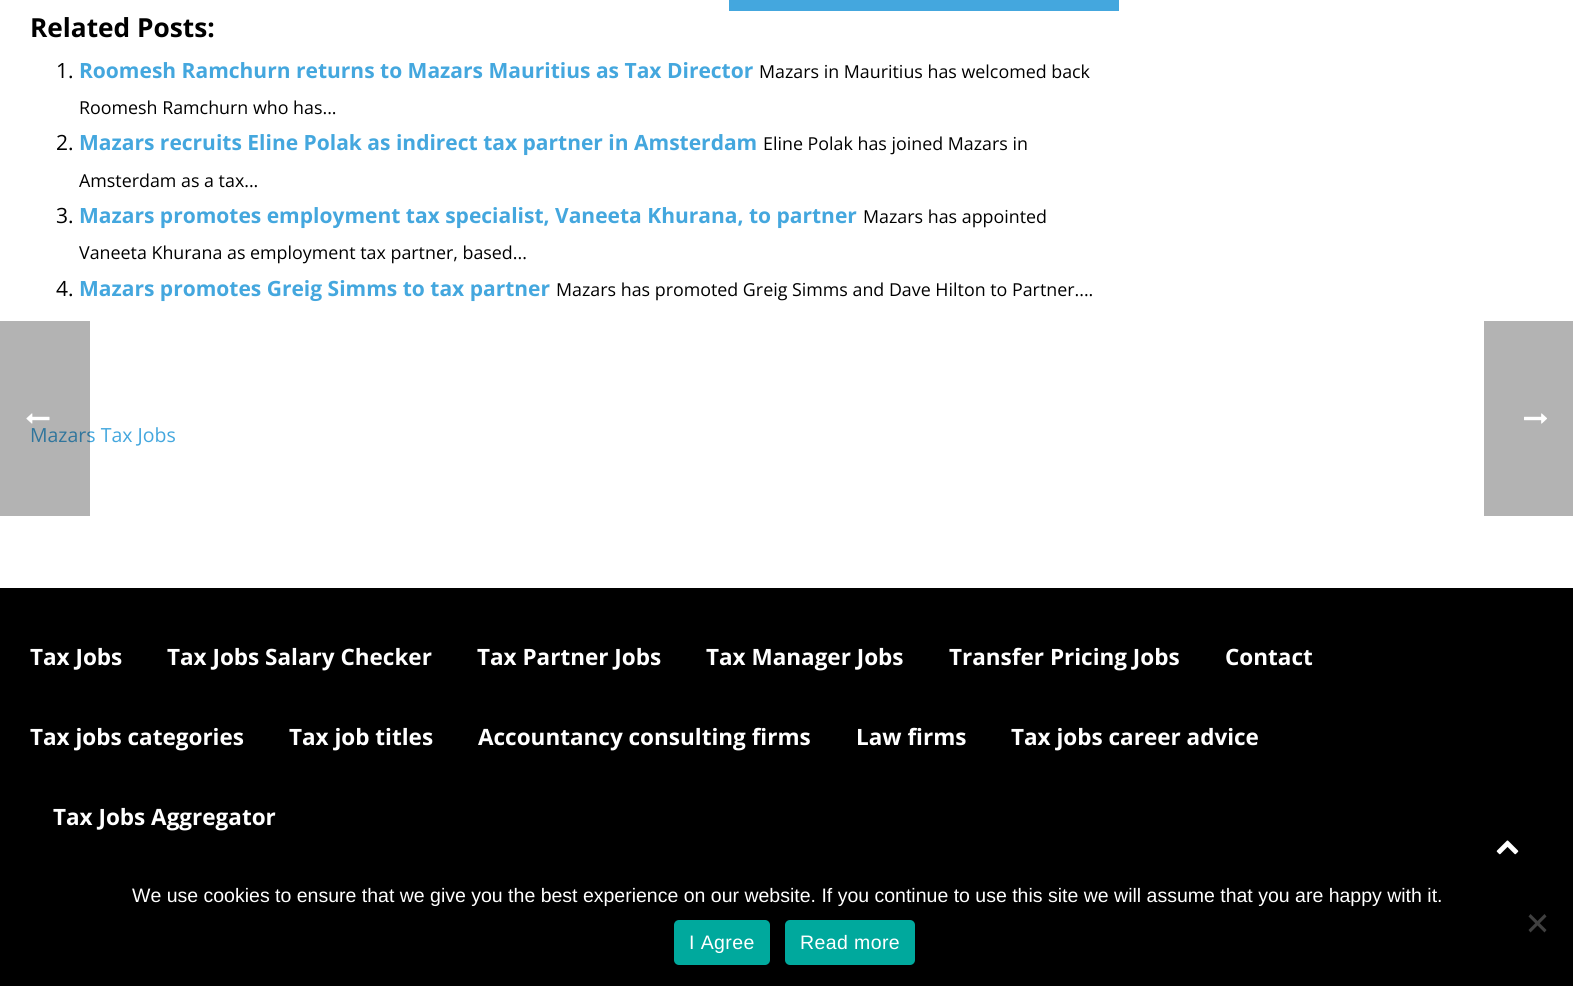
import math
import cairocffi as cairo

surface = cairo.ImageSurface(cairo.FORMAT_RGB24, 1573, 986)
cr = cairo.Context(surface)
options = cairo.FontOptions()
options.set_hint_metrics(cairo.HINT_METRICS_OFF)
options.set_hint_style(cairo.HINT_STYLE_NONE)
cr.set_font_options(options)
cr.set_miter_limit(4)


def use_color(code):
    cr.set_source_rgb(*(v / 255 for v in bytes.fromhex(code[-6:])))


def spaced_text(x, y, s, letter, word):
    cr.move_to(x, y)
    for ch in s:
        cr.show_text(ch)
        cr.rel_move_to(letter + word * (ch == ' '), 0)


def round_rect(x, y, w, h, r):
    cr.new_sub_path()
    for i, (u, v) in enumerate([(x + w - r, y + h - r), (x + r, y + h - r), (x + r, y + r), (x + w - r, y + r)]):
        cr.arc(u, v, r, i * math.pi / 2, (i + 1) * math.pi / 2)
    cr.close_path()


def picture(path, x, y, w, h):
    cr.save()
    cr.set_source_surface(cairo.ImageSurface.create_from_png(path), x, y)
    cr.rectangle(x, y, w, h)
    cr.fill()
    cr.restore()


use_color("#ffffff")
cr.paint()
use_color("#44a7de")
cr.rectangle(729, 0, 390, 11)
cr.fill()
cr.select_font_face("Open Sans", cairo.FONT_SLANT_NORMAL, cairo.FONT_WEIGHT_BOLD)
cr.set_font_size(26.25)
use_color("#000000")
cr.move_to(30, 37)
cr.show_text("Related Posts:")
cr.select_font_face("Open Sans")
cr.set_font_size(21)
cr.move_to(56, 78)
cr.show_text("1.")
cr.select_font_face("Open Sans", cairo.FONT_SLANT_NORMAL, cairo.FONT_WEIGHT_BOLD)
use_color("#44a7de")
cr.move_to(79, 78)
cr.show_text("Roomesh Ramchurn returns to Mazars Mauritius as Tax Director")
cr.select_font_face("Open Sans")
cr.set_font_size(17.85)
use_color("#000000")
cr.move_to(759, 78)
cr.show_text("Mazars in Mauritius has welcomed back")
cr.move_to(79, 114)
cr.show_text("Roomesh Ramchurn who has...")
cr.set_font_size(21)
cr.move_to(56, 150)
cr.show_text("2.")
cr.select_font_face("Open Sans", cairo.FONT_SLANT_NORMAL, cairo.FONT_WEIGHT_BOLD)
use_color("#44a7de")
cr.move_to(79, 150)
cr.show_text("Mazars recruits Eline Polak as indirect tax partner in Amsterdam")
cr.select_font_face("Open Sans")
cr.set_font_size(17.85)
use_color("#000000")
cr.move_to(763, 150)
cr.show_text("Eline Polak has joined Mazars in")
cr.move_to(79, 187)
cr.show_text("Amsterdam as a tax...")
cr.set_font_size(21)
cr.move_to(56, 223)
cr.show_text("3.")
cr.select_font_face("Open Sans", cairo.FONT_SLANT_NORMAL, cairo.FONT_WEIGHT_BOLD)
use_color("#44a7de")
cr.move_to(79, 223)
cr.show_text("Mazars promotes employment tax specialist, Vaneeta Khurana, to partner")
cr.select_font_face("Open Sans")
cr.set_font_size(17.85)
use_color("#000000")
cr.move_to(863, 223)
cr.show_text("Mazars has appointed")
cr.move_to(79, 259)
cr.show_text("Vaneeta Khurana as employment tax partner, based...")
cr.set_font_size(21)
cr.move_to(56, 296)
cr.show_text("4.")
cr.select_font_face("Open Sans", cairo.FONT_SLANT_NORMAL, cairo.FONT_WEIGHT_BOLD)
use_color("#44a7de")
cr.move_to(79, 296)
cr.show_text("Mazars promotes Greig Simms to tax partner")
cr.select_font_face("Open Sans")
cr.set_font_size(17.85)
use_color("#000000")
cr.move_to(556, 296)
cr.show_text("Mazars has promoted Greig Simms and Dave Hilton to Partner....")
cr.set_font_size(19.5)
use_color("#44a7de")
cr.move_to(30, 442)
cr.show_text("Mazars Tax Jobs")
use_color("#000000")
cr.rectangle(0, 588, 1573, 398)
cr.fill()
cr.select_font_face("Open Sans", cairo.FONT_SLANT_NORMAL, cairo.FONT_WEIGHT_BOLD)
cr.set_font_size(22.5)
use_color("#ffffff")
cr.move_to(30, 665)
cr.show_text("Tax Jobs")
cr.move_to(167, 665)
cr.show_text("Tax Jobs Salary Checker")
cr.move_to(477, 665)
cr.show_text("Tax Partner Jobs")
cr.move_to(706, 665)
cr.show_text("Tax Manager Jobs")
cr.move_to(949, 665)
cr.show_text("Transfer Pricing Jobs")
cr.move_to(1225, 665)
cr.show_text("Contact")
cr.move_to(30, 745)
cr.show_text("Tax jobs categories")
cr.move_to(289, 745)
cr.show_text("Tax job titles")
cr.move_to(478, 745)
cr.show_text("Accountancy consulting firms")
cr.move_to(856, 745)
cr.show_text("Law firms")
cr.move_to(1011, 745)
cr.show_text("Tax jobs career advice")
cr.move_to(53, 825)
cr.show_text("Tax Jobs Aggregator")
picture("img1.png", 1496, 840, 23, 15)
cr.set_source_rgba(0, 0, 0, 0.3)
cr.rectangle(0, 321, 90, 195)
cr.fill()
picture("img2.png", 26, 413, 24, 11)
use_color("#b3b3b3")
cr.rectangle(1484, 321, 89, 195)
cr.fill()
picture("img3.png", 1524, 413, 23, 11)
cr.select_font_face("Liberation Sans")
cr.set_font_size(19.5)
use_color("#ffffff")
cr.move_to(132, 902)
cr.show_text("We use cookies to ensure that we give you the best experience on our website. If you continue to use this site we will assume that you are happy with it.")
use_color("#404040")
cr.new_path()
cr.move_to(1544.5, 914)
cr.line_to(1546.5, 916.5)
cr.line_to(1530.5, 932.5)
cr.line_to(1528.5, 930)
cr.close_path()
cr.fill()
cr.new_path()
cr.move_to(1528.5, 916.5)
cr.line_to(1530.5, 914)
cr.line_to(1546.5, 930)
cr.line_to(1544.5, 932.5)
cr.close_path()
cr.fill()
use_color("#00a99d")
round_rect(674, 920, 96, 45, 5)
cr.fill()
use_color("#ffffff")
spaced_text(689, 949, "I Agree", 0.4, 0)
use_color("#00a99d")
round_rect(785, 920, 130, 45, 5)
cr.fill()
use_color("#ffffff")
spaced_text(800, 949, "Read more", 0.4, 0)
surface.write_to_png("result.png")
